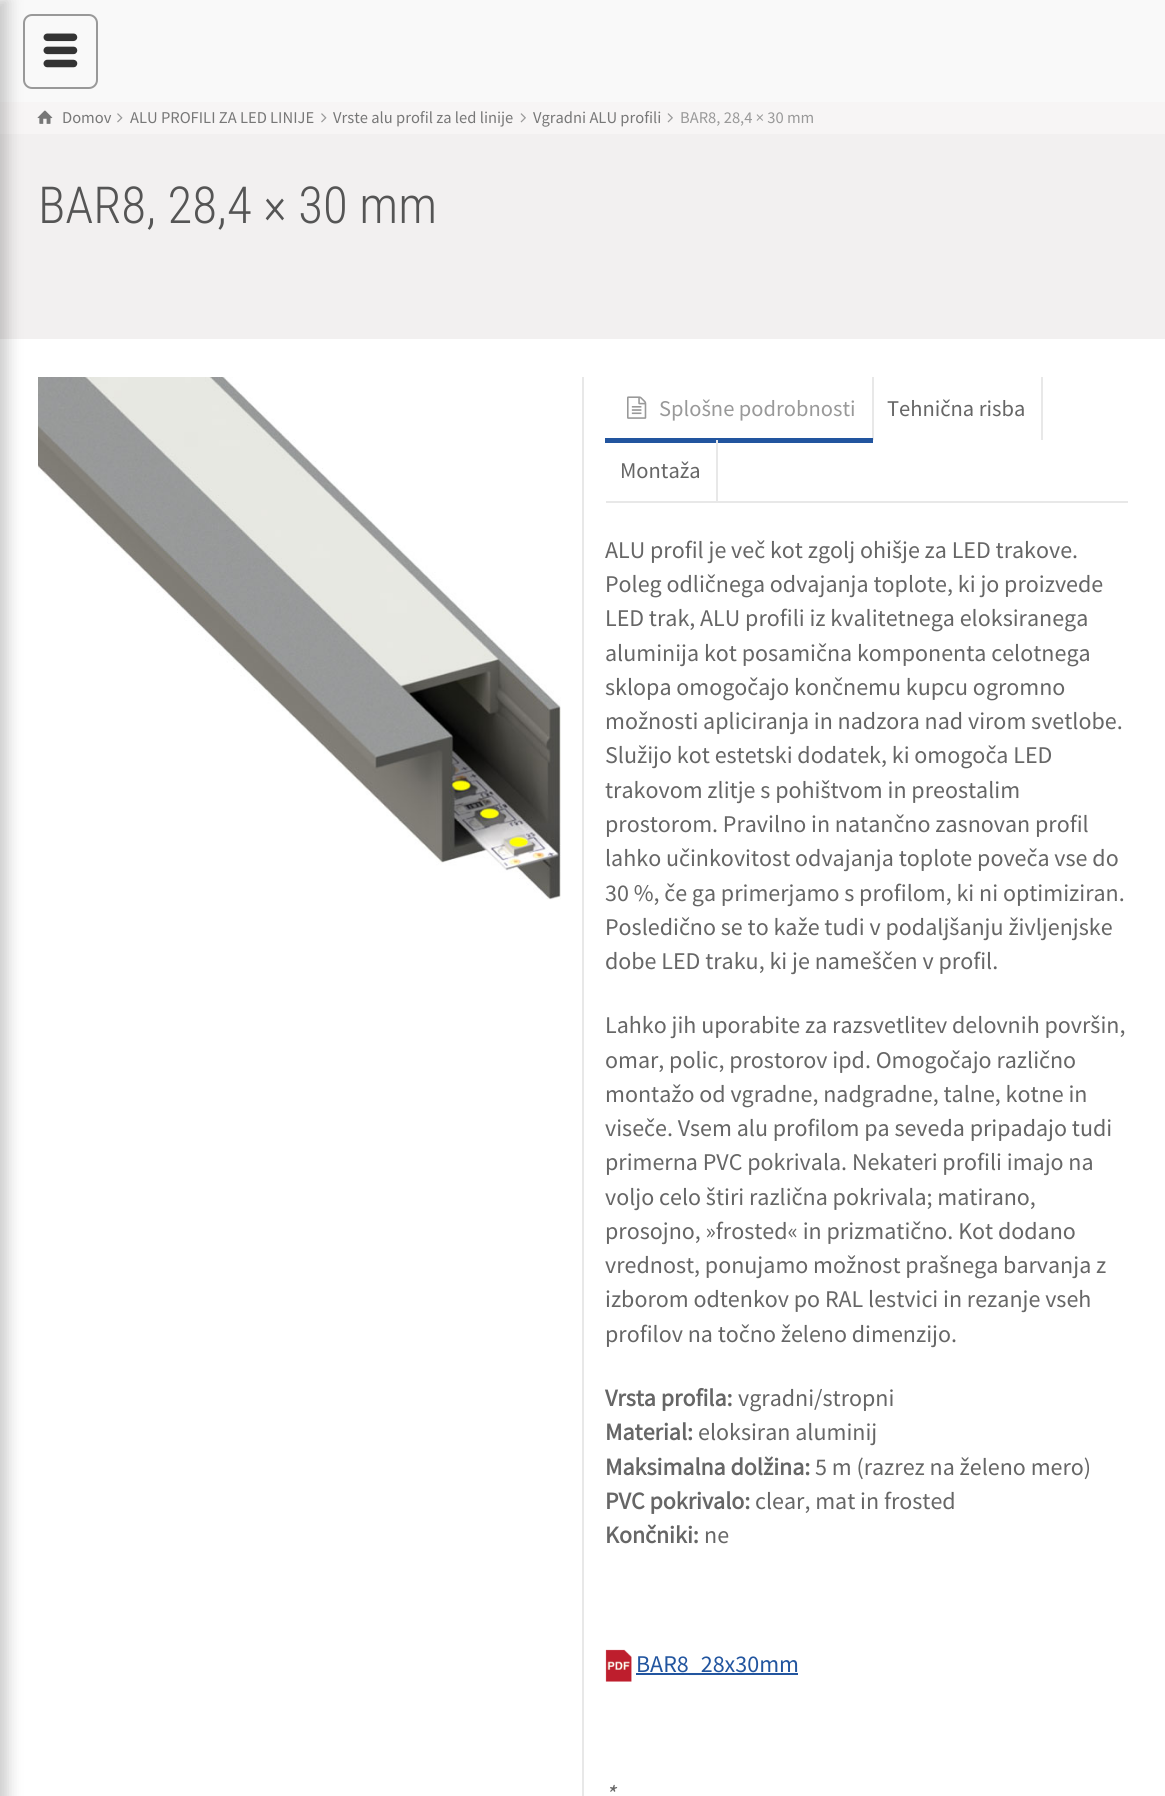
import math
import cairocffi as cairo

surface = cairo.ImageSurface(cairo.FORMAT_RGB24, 1165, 1796)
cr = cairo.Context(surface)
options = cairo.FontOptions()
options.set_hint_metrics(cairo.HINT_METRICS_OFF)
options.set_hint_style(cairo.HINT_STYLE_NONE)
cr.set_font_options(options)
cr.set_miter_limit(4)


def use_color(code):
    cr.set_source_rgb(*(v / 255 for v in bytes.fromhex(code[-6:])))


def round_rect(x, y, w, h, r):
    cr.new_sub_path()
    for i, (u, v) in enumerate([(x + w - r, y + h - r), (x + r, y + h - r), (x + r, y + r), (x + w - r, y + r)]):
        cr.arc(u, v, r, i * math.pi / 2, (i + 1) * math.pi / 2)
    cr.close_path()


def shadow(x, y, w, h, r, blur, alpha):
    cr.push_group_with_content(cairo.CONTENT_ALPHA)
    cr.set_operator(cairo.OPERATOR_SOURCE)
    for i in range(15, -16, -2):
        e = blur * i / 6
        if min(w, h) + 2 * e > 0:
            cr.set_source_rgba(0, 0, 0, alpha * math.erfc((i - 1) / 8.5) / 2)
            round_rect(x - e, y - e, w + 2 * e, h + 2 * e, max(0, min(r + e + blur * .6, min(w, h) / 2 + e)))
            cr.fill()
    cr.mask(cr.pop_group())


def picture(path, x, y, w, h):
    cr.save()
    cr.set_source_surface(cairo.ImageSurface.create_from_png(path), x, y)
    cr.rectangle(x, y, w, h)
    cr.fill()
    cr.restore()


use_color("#f9f9f9")
cr.paint()
use_color("#f2f0f0")
cr.rectangle(0, 134, 1165, 205)
cr.fill()
use_color("#f7f5f5")
cr.rectangle(0, 102, 1165, 32)
cr.fill()
use_color("#ffffff")
cr.rectangle(0, 339, 1165, 1457)
cr.fill()
use_color("#000000")
shadow(-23, 0, 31, 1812, 0, 7.5, 0.2)
round_rect(24, 15, 73, 73, 8)
use_color("#999999")
cr.stroke()
picture("img1.png", 43, 33, 35, 35)
picture("img2.png", 37, 110, 16, 14)
cr.select_font_face("Source Sans Pro")
cr.set_font_size(16.5)
use_color("#777777")
cr.move_to(62, 123)
cr.show_text("Domov")
picture("img3.png", 117, 113, 6, 10)
cr.move_to(130, 123)
cr.show_text("ALU PROFILI ZA LED LINIJE")
picture("img3.png", 321, 113, 6, 10)
cr.move_to(333, 123)
cr.show_text("Vrste alu profil za led linije")
picture("img4.png", 520, 113, 6, 10)
cr.move_to(533, 123)
cr.show_text("Vgradni ALU profili")
picture("img4.png", 667, 113, 6, 10)
use_color("#999999")
cr.move_to(680, 123)
cr.show_text("BAR8, 28,4 × 30 mm")
cr.select_font_face("Roboto Condensed Light")
cr.set_font_size(51)
use_color("#555555")
cr.move_to(38, 223)
cr.show_text("BAR8, 28,4 × 30 mm")
picture("img5.png", 38, 377, 523, 523)
use_color("#e8e8e8")
cr.rectangle(582, 377, 2, 1419)
cr.fill()
cr.rectangle(606, 501, 522, 2)
cr.fill()
cr.rectangle(872, 377, 2, 63)
cr.fill()
picture("img6.png", 627, 396, 20, 23)
cr.select_font_face("Source Sans Pro")
cr.set_font_size(22.5)
use_color("#999999")
cr.move_to(659, 416)
cr.show_text("Splošne podrobnosti")
use_color("#22559f")
cr.rectangle(605, 438, 268, 5)
cr.fill()
use_color("#e8e8e8")
cr.rectangle(1041, 377, 2, 63)
cr.fill()
use_color("#666666")
cr.move_to(887, 416)
cr.show_text("Tehnična risba")
use_color("#e8e8e8")
cr.rectangle(716, 440, 2, 61)
cr.fill()
use_color("#666666")
cr.move_to(620, 478)
cr.show_text("Montaža")
cr.set_font_size(24)
cr.move_to(605, 558)
cr.show_text("ALU profil je več kot zgolj ohišje za LED trakove.")
cr.move_to(605, 592)
cr.show_text("Poleg odličnega odvajanja toplote, ki jo proizvede")
cr.move_to(605, 626)
cr.show_text("LED trak, ALU profili iz kvalitetnega eloksiranega")
cr.move_to(605, 661)
cr.show_text("aluminija kot posamična komponenta celotnega")
cr.move_to(605, 695)
cr.show_text("sklopa omogočajo končnemu kupcu ogromno")
cr.move_to(605, 729)
cr.show_text("možnosti apliciranja in nadzora nad virom svetlobe.")
cr.move_to(605, 763)
cr.show_text("Služijo kot estetski dodatek, ki omogoča LED")
cr.move_to(605, 798)
cr.show_text("trakovom zlitje s pohištvom in preostalim")
cr.move_to(605, 832)
cr.show_text("prostorom. Pravilno in natančno zasnovan profil")
cr.move_to(605, 866)
cr.show_text("lahko učinkovitost odvajanja toplote poveča vse do")
cr.move_to(605, 901)
cr.show_text("30 %, če ga primerjamo s profilom, ki ni optimiziran.")
cr.move_to(605, 935)
cr.show_text("Posledično se to kaže tudi v podaljšanju življenjske")
cr.move_to(605, 969)
cr.show_text("dobe LED traku, ki je nameščen v profil.")
cr.move_to(605, 1033)
cr.show_text("Lahko jih uporabite za razsvetlitev delovnih površin,")
cr.move_to(605, 1068)
cr.show_text("omar, polic, prostorov ipd. Omogočajo različno")
cr.move_to(605, 1102)
cr.show_text("montažo od vgradne, nadgradne, talne, kotne in")
cr.move_to(605, 1136)
cr.show_text("viseče. Vsem alu profilom pa seveda pripadajo tudi")
cr.move_to(605, 1170)
cr.show_text("primerna PVC pokrivala. Nekateri profili imajo na")
cr.move_to(605, 1205)
cr.show_text("voljo celo štiri različna pokrivala; matirano,")
cr.move_to(605, 1239)
cr.show_text("prosojno, »frosted« in prizmatično. Kot dodano")
cr.move_to(605, 1273)
cr.show_text("vrednost, ponujamo možnost prašnega barvanja z")
cr.move_to(605, 1307)
cr.show_text("izborom odtenkov po RAL lestvici in rezanje vseh")
cr.move_to(605, 1342)
cr.show_text("profilov na točno želeno dimenzijo.")
cr.select_font_face("Source Sans Pro", cairo.FONT_SLANT_NORMAL, cairo.FONT_WEIGHT_BOLD)
cr.move_to(605, 1406)
cr.show_text("Vrsta profila:")
cr.select_font_face("Source Sans Pro")
cr.move_to(738, 1406)
cr.show_text("vgradni/stropni")
cr.select_font_face("Source Sans Pro", cairo.FONT_SLANT_NORMAL, cairo.FONT_WEIGHT_BOLD)
cr.move_to(605, 1440)
cr.show_text("Material:")
cr.select_font_face("Source Sans Pro")
cr.move_to(698, 1440)
cr.show_text("eloksiran aluminij")
cr.select_font_face("Source Sans Pro", cairo.FONT_SLANT_NORMAL, cairo.FONT_WEIGHT_BOLD)
cr.move_to(605, 1475)
cr.show_text("Maksimalna dolžina:")
cr.select_font_face("Source Sans Pro")
cr.move_to(815, 1475)
cr.show_text("5 m (razrez na želeno mero)")
cr.select_font_face("Source Sans Pro", cairo.FONT_SLANT_NORMAL, cairo.FONT_WEIGHT_BOLD)
cr.move_to(605, 1509)
cr.show_text("PVC pokrivalo:")
cr.select_font_face("Source Sans Pro")
cr.move_to(755, 1509)
cr.show_text("clear, mat in frosted")
cr.select_font_face("Source Sans Pro", cairo.FONT_SLANT_NORMAL, cairo.FONT_WEIGHT_BOLD)
cr.move_to(605, 1543)
cr.show_text("Končniki:")
cr.select_font_face("Source Sans Pro")
cr.move_to(704, 1543)
cr.show_text("ne")
picture("img7.png", 605, 1649, 27, 33)
use_color("#22559f")
cr.rectangle(636, 1673, 162, 2)
cr.fill()
cr.move_to(636, 1672)
cr.show_text("BAR8_28x30mm")
cr.select_font_face("Source Sans Pro", cairo.FONT_SLANT_ITALIC)
use_color("#666666")
cr.move_to(605, 1802)
cr.show_text("*")
surface.write_to_png("result.png")
